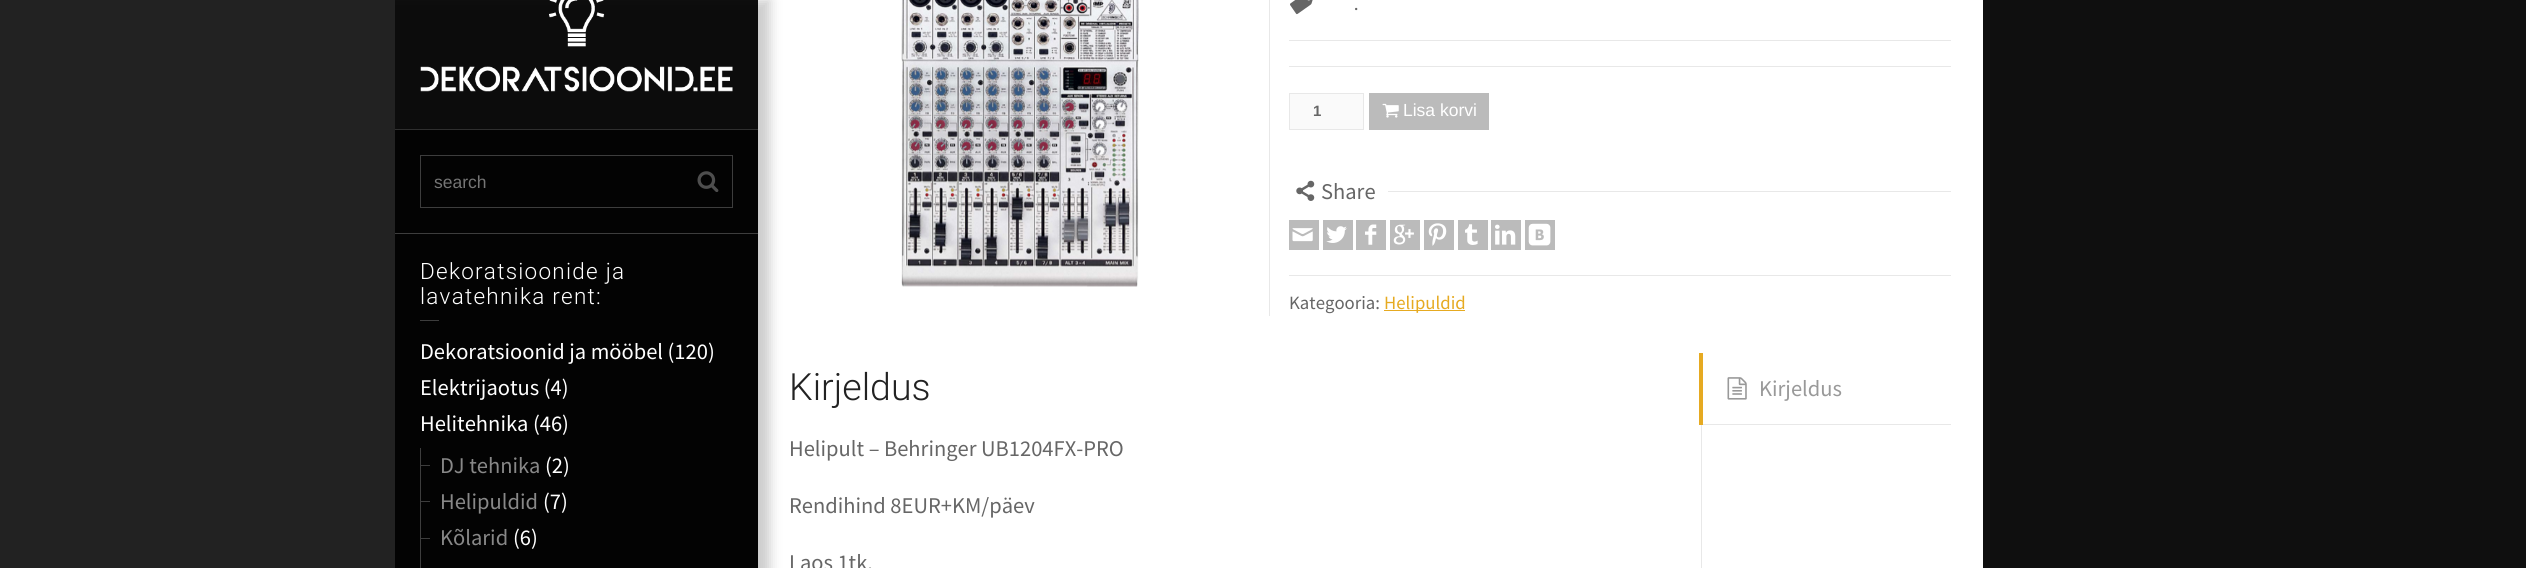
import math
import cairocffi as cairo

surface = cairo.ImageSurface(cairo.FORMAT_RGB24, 2526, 568)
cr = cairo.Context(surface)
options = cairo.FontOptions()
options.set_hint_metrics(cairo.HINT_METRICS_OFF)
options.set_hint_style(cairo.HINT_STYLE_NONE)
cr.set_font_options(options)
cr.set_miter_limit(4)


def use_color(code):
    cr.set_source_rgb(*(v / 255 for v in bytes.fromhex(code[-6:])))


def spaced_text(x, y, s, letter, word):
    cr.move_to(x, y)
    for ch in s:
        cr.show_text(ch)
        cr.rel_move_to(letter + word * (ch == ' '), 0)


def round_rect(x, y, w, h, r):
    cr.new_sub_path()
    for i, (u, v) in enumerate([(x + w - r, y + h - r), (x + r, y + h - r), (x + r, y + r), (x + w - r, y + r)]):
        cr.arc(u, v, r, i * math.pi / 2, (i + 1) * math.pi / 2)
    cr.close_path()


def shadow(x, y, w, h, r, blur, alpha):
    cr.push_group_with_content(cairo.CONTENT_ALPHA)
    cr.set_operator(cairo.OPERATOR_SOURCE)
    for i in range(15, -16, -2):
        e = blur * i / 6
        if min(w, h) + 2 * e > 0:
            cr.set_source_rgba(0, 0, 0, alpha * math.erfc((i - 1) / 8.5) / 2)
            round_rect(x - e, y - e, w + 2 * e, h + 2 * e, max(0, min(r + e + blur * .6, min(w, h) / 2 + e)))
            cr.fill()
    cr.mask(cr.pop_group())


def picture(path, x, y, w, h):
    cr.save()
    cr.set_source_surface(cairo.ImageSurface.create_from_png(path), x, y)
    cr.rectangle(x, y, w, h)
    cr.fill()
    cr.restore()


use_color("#0f0f0f")
cr.paint()
use_color("#ffffff")
cr.rectangle(758, 0, 1225, 568)
cr.fill()
use_color("#000000")
shadow(-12, 0, 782, 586, 0, 6, 0.2)
use_color("#222222")
cr.rectangle(0, 0, 395, 568)
cr.fill()
use_color("#2f2f2f")
cr.rectangle(395, 129, 363, 1)
cr.fill()
picture("img1.png", 420, 0, 313, 92)
use_color("#030303")
cr.rectangle(395, 130, 363, 438)
cr.fill()
cr.rectangle(420.5, 155.5, 312, 52)
use_color("#3d3d3d")
cr.set_line_width(1)
cr.stroke()
cr.select_font_face("Liberation Sans")
cr.set_font_size(17.5)
use_color("#757575")
cr.move_to(434, 188)
cr.show_text("search")
picture("img2.png", 697, 171, 22, 21)
use_color("#3d3d3d")
cr.rectangle(395, 233, 363, 1)
cr.fill()
cr.select_font_face("Roboto Light")
cr.set_font_size(22.5)
use_color("#ffffff")
spaced_text(420, 279, "Dekoratsioonide ja", 1.25, 0)
spaced_text(420, 304, "lavatehnika rent:", 1.25, 0)
use_color("#3d3d3d")
cr.rectangle(420, 320, 19, 1)
cr.fill()
cr.select_font_face("Source Sans Pro")
use_color("#ffffff")
cr.move_to(420, 359)
cr.show_text("Dekoratsioonid ja mööbel (120)")
cr.move_to(420, 395)
cr.show_text("Elektrijaotus (4)")
cr.move_to(420, 431)
cr.show_text("Helitehnika (46)")
use_color("#3d3d3d")
cr.rectangle(420, 448, 1, 120)
cr.fill()
cr.rectangle(420, 465, 10, 1)
cr.fill()
use_color("#888888")
cr.move_to(440, 473)
cr.show_text("DJ tehnika")
use_color("#ffffff")
cr.move_to(545, 473)
cr.show_text("(2)")
use_color("#3d3d3d")
cr.rectangle(420, 501, 10, 1)
cr.fill()
use_color("#888888")
cr.move_to(440, 509)
cr.show_text("Helipuldid")
use_color("#ffffff")
cr.move_to(543, 509)
cr.show_text("(7)")
use_color("#3d3d3d")
cr.rectangle(420, 538, 10, 1)
cr.fill()
use_color("#888888")
cr.move_to(440, 545)
cr.show_text("Kõlarid")
use_color("#ffffff")
cr.move_to(513, 545)
cr.show_text("(6)")
picture("img3.png", 901, 0, 238, 287)
use_color("#e8e8e8")
cr.rectangle(1269, 0, 1, 316)
cr.fill()
cr.rectangle(1289, 40, 662, 1)
cr.fill()
picture("img4.png", 1290, 0, 23, 15)
cr.select_font_face("Roboto Light")
cr.set_font_size(28)
use_color("#666666")
cr.move_to(1353, 10)
cr.show_text(".")
use_color("#e8e8e8")
cr.rectangle(1289, 66, 662, 1)
cr.fill()
use_color("#fafafa")
cr.rectangle(1289.5, 93.5, 74, 36)
cr.fill_preserve()
use_color("#e8e8e8")
cr.stroke()
cr.select_font_face("Liberation Sans", cairo.FONT_SLANT_NORMAL, cairo.FONT_WEIGHT_BOLD)
cr.set_font_size(15)
use_color("#666666")
cr.move_to(1313, 116)
cr.show_text("1")
use_color("#bbbbbb")
cr.rectangle(1369, 93, 120, 37)
cr.fill()
picture("img5.png", 1382, 103, 17, 15)
cr.select_font_face("Liberation Sans")
cr.set_font_size(17.5)
use_color("#ffffff")
cr.move_to(1403, 116)
cr.show_text("Lisa korvi")
picture("img6.png", 1296, 180, 19, 21)
cr.select_font_face("Source Sans Pro")
cr.set_font_size(22.5)
use_color("#666666")
cr.move_to(1321, 199)
cr.show_text("Share")
use_color("#e8e8e8")
cr.rectangle(1388, 191, 563, 1)
cr.fill()
use_color("#bbbbbb")
cr.rectangle(1289, 220, 30, 30)
cr.fill()
picture("img7.png", 1292, 228, 21, 14)
cr.rectangle(1323, 220, 30, 30)
cr.fill()
picture("img8.png", 1326, 226, 21, 17)
cr.rectangle(1356, 220, 30, 30)
cr.fill()
picture("img9.png", 1365, 224, 12, 21)
cr.rectangle(1390, 220, 30, 30)
cr.fill()
picture("img10.png", 1393, 224, 21, 21)
cr.rectangle(1424, 220, 30, 30)
cr.fill()
picture("img11.png", 1428, 223, 19, 23)
cr.rectangle(1458, 220, 30, 30)
cr.fill()
picture("img12.png", 1465, 224, 13, 21)
cr.rectangle(1491, 220, 30, 30)
cr.fill()
picture("img13.png", 1495, 224, 21, 21)
cr.rectangle(1525, 220, 30, 30)
cr.fill()
picture("img14.png", 1528, 223, 23, 23)
use_color("#e8e8e8")
cr.rectangle(1289, 275, 662, 1)
cr.fill()
cr.set_font_size(18.75)
use_color("#666666")
cr.move_to(1289, 309)
cr.show_text("Kategooria:")
use_color("#e6aa21")
cr.rectangle(1384, 310, 81, 1)
cr.fill()
cr.move_to(1384, 309)
cr.show_text("Helipuldid")
cr.select_font_face("Roboto Light")
cr.set_font_size(37.5)
use_color("#222222")
cr.move_to(789, 400)
cr.show_text("Kirjeldus")
cr.select_font_face("Source Sans Pro")
cr.set_font_size(22.5)
use_color("#666666")
cr.move_to(789, 456)
cr.show_text("Helipult – Behringer UB1204FX-PRO")
cr.move_to(789, 513)
cr.show_text("Rendihind 8EUR+KM/päev")
cr.move_to(789, 570)
cr.show_text("Laos 1tk.")
use_color("#e8e8e8")
cr.rectangle(1701, 425, 1, 143)
cr.fill()
cr.rectangle(1703, 424, 248, 1)
cr.fill()
use_color("#e6aa21")
cr.rectangle(1699, 353, 4, 72)
cr.fill()
picture("img15.png", 1727, 377, 20, 23)
use_color("#999999")
cr.move_to(1759, 396)
cr.show_text("Kirjeldus")
surface.write_to_png("result.png")
